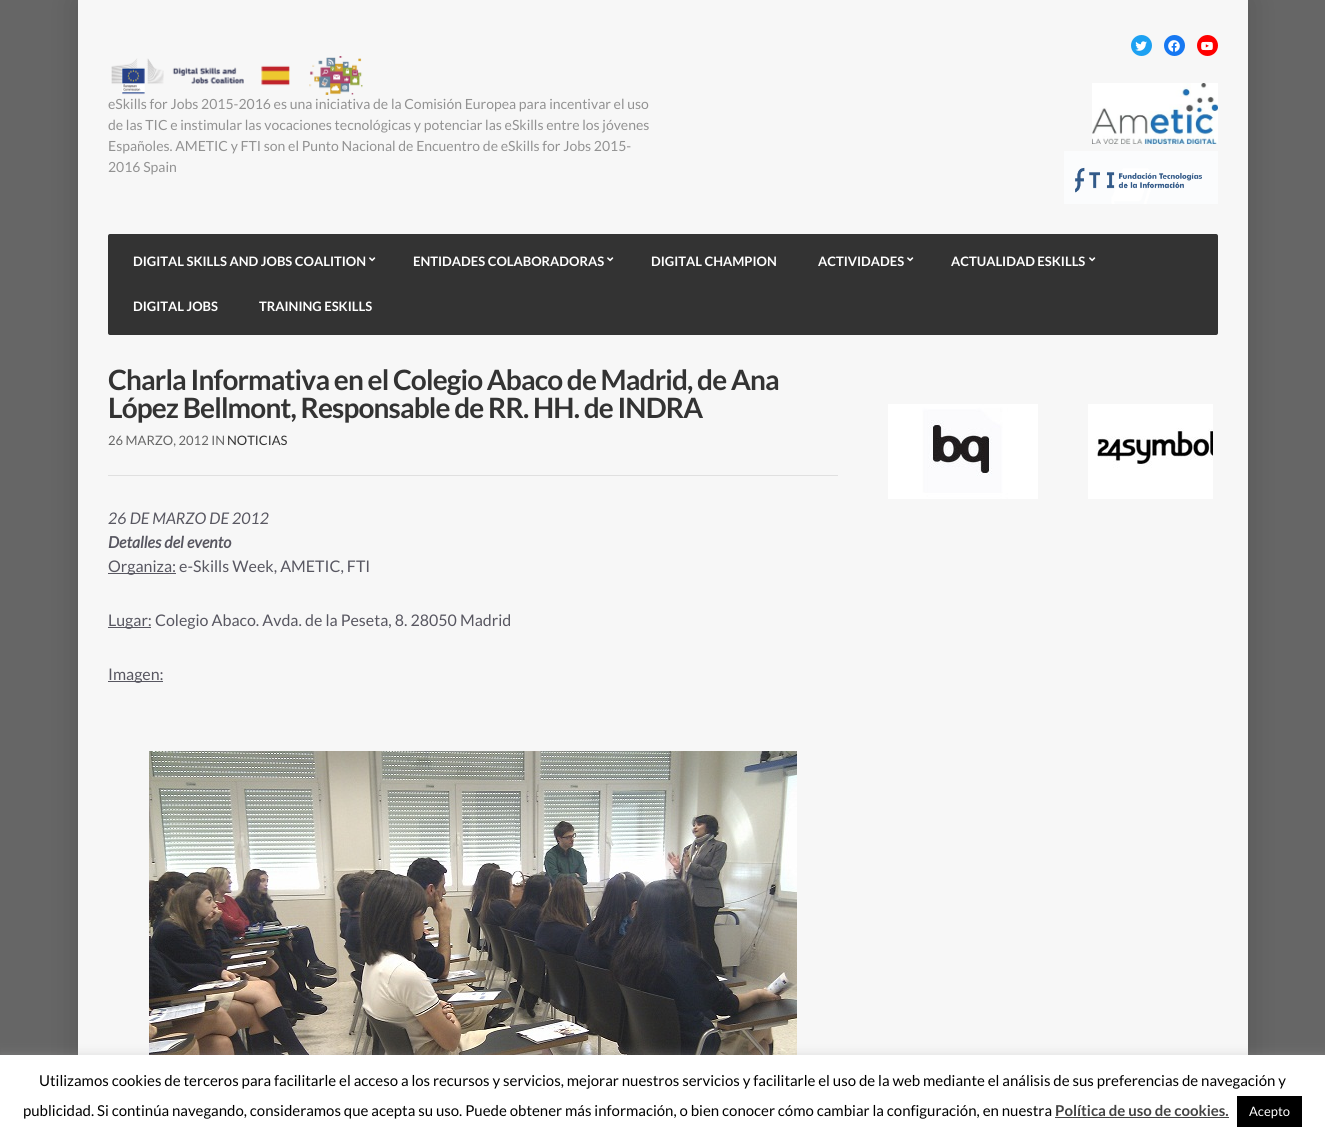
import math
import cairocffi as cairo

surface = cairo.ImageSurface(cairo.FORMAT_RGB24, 1325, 1139)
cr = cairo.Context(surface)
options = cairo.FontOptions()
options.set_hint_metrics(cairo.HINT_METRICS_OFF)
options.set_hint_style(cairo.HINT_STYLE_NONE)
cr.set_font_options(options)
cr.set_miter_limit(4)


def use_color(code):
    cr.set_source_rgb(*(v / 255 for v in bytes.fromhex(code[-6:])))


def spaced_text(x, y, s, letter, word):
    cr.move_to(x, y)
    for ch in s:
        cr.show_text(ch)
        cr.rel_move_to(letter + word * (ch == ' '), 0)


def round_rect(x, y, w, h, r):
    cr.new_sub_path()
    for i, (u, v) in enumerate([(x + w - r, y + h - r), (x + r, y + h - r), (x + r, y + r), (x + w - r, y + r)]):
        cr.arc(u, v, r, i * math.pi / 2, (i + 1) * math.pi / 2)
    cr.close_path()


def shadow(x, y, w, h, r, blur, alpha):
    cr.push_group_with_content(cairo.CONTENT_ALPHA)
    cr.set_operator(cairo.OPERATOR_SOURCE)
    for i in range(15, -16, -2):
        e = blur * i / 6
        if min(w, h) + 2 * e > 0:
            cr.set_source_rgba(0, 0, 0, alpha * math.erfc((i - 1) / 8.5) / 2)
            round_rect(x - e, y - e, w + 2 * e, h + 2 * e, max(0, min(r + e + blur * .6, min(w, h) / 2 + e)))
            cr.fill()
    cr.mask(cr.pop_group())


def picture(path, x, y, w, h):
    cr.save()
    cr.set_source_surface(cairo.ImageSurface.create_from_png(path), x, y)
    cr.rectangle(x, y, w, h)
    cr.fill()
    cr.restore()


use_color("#666666")
cr.paint()
use_color("#000000")
shadow(78, 0, 1170, 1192, 0, 17.5, 0.15)
use_color("#f7f7f7")
cr.rectangle(78, 0, 1170, 1055)
cr.fill()
picture("img1.png", 111, 56, 252, 39)
cr.select_font_face("Lato")
cr.set_font_size(14)
use_color("#929292")
cr.move_to(108, 109)
cr.show_text("eSkills for Jobs 2015-2016 es una iniciativa de la Comisión Europea para incentivar el uso")
cr.move_to(108, 130)
cr.show_text("de las TIC e instimular las vocaciones tecnológicas y potenciar las eSkills entre los jóvenes")
cr.move_to(108, 151)
cr.show_text("Españoles. AMETIC y FTI son el Punto Nacional de Encuentro de eSkills for Jobs 2015-")
cr.move_to(108, 172)
cr.show_text("2016 Spain")
use_color("#1da1f2")
cr.new_path()
cr.arc(1141.5, 45.5, 10.5, 0, 2 * math.pi)
cr.fill()
picture("img2.png", 1135, 41, 12, 10)
use_color("#1778f2")
cr.arc(1174.5, 45.5, 10.5, 0, 2 * math.pi)
cr.fill()
picture("img3.png", 1168, 40, 12, 12)
use_color("#ff0000")
cr.arc(1207.5, 45.5, 10.5, 0, 2 * math.pi)
cr.fill()
picture("img4.png", 1201, 41, 12, 10)
picture("img5.png", 1092, 83, 126, 61)
picture("img6.png", 1064, 151, 154, 53)
use_color("#333333")
round_rect(108, 234, 1110, 101, 2)
cr.fill()
cr.select_font_face("Lato", cairo.FONT_SLANT_NORMAL, cairo.FONT_WEIGHT_BOLD)
cr.set_font_size(13)
use_color("#ffffff")
cr.move_to(133, 266)
cr.show_text("DIGITAL SKILLS AND JOBS COALITION")
picture("img7.png", 369, 257, 7, 5)
cr.move_to(413, 266)
cr.show_text("ENTIDADES COLABORADORAS")
picture("img7.png", 607, 257, 7, 5)
cr.move_to(651, 266)
cr.show_text("DIGITAL CHAMPION")
cr.move_to(818, 266)
cr.show_text("ACTIVIDADES")
picture("img7.png", 907, 257, 7, 5)
cr.move_to(951, 266)
cr.show_text("ACTUALIDAD ESKILLS")
picture("img7.png", 1089, 257, 7, 5)
cr.move_to(133, 311)
cr.show_text("DIGITAL JOBS")
cr.move_to(259, 311)
cr.show_text("TRAINING ESKILLS")
cr.set_font_size(28)
use_color("#333333")
spaced_text(108, 390, "Charla Informativa en el Colegio Abaco de Madrid, de Ana", -0.85, 0)
spaced_text(108, 418, "López Bellmont, Responsable de RR. HH. de INDRA", -0.85, 0)
use_color("#e0e0e0")
cr.rectangle(108, 475, 730, 1)
cr.fill()
cr.select_font_face("Lato")
cr.set_font_size(13)
use_color("#666666")
cr.move_to(108, 445)
cr.show_text("26 MARZO, 2012 IN")
use_color("#333333")
cr.move_to(227, 445)
cr.show_text("NOTICIAS")
cr.select_font_face("Lato", cairo.FONT_SLANT_ITALIC)
cr.set_font_size(16)
use_color("#585761")
cr.move_to(108, 524)
cr.show_text("26 DE MARZO DE 2012")
cr.select_font_face("Lato", cairo.FONT_SLANT_ITALIC, cairo.FONT_WEIGHT_BOLD)
cr.move_to(108, 548)
cr.show_text("Detalles del evento")
cr.rectangle(108, 573, 68, 1)
cr.fill()
cr.select_font_face("Lato")
cr.move_to(108, 572)
cr.show_text("Organiza: e-Skills Week, AMETIC, FTI")
cr.rectangle(108, 627, 43, 1)
cr.fill()
cr.move_to(108, 626)
cr.show_text("Lugar: Colegio Abaco. Avda. de la Peseta, 8. 28050 Madrid")
cr.rectangle(108, 681, 55, 1)
cr.fill()
cr.move_to(108, 680)
cr.show_text("Imagen:")
picture("img8.png", 149, 751, 648, 304)
picture("img9.png", 888, 404, 150, 95)
picture("img10.png", 1088, 404, 125, 95)
use_color("#acabab")
shadow(0, 1054, 1325, 84, 0, 5, 0.3)
use_color("#ffffff")
cr.rectangle(0, 1055, 1325, 84)
cr.fill()
cr.set_font_size(15)
use_color("#000000")
cr.move_to(39, 1086)
cr.show_text("Utilizamos cookies de terceros para facilitarle el acceso a los recursos y servicios, mejorar nuestros servicios y facilitarle el uso de la web mediante el análisis de sus preferencias de navegación y")
cr.move_to(23, 1116)
cr.show_text("publicidad. Si continúa navegando, consideramos que acepta su uso. Puede obtener más información, o bien conocer cómo cambiar la configuración, en nuestra")
cr.select_font_face("Lato", cairo.FONT_SLANT_NORMAL, cairo.FONT_WEIGHT_BOLD)
use_color("#444444")
cr.move_to(1055, 1116)
cr.show_text("Política de uso de cookies.")
cr.rectangle(1055, 1117, 174, 1)
cr.fill()
use_color("#000000")
cr.rectangle(1237, 1096, 65, 31)
cr.fill()
cr.select_font_face("Lato")
cr.set_font_size(13)
use_color("#ffffff")
cr.move_to(1249, 1116)
cr.show_text("Acepto")
surface.write_to_png("result.png")
